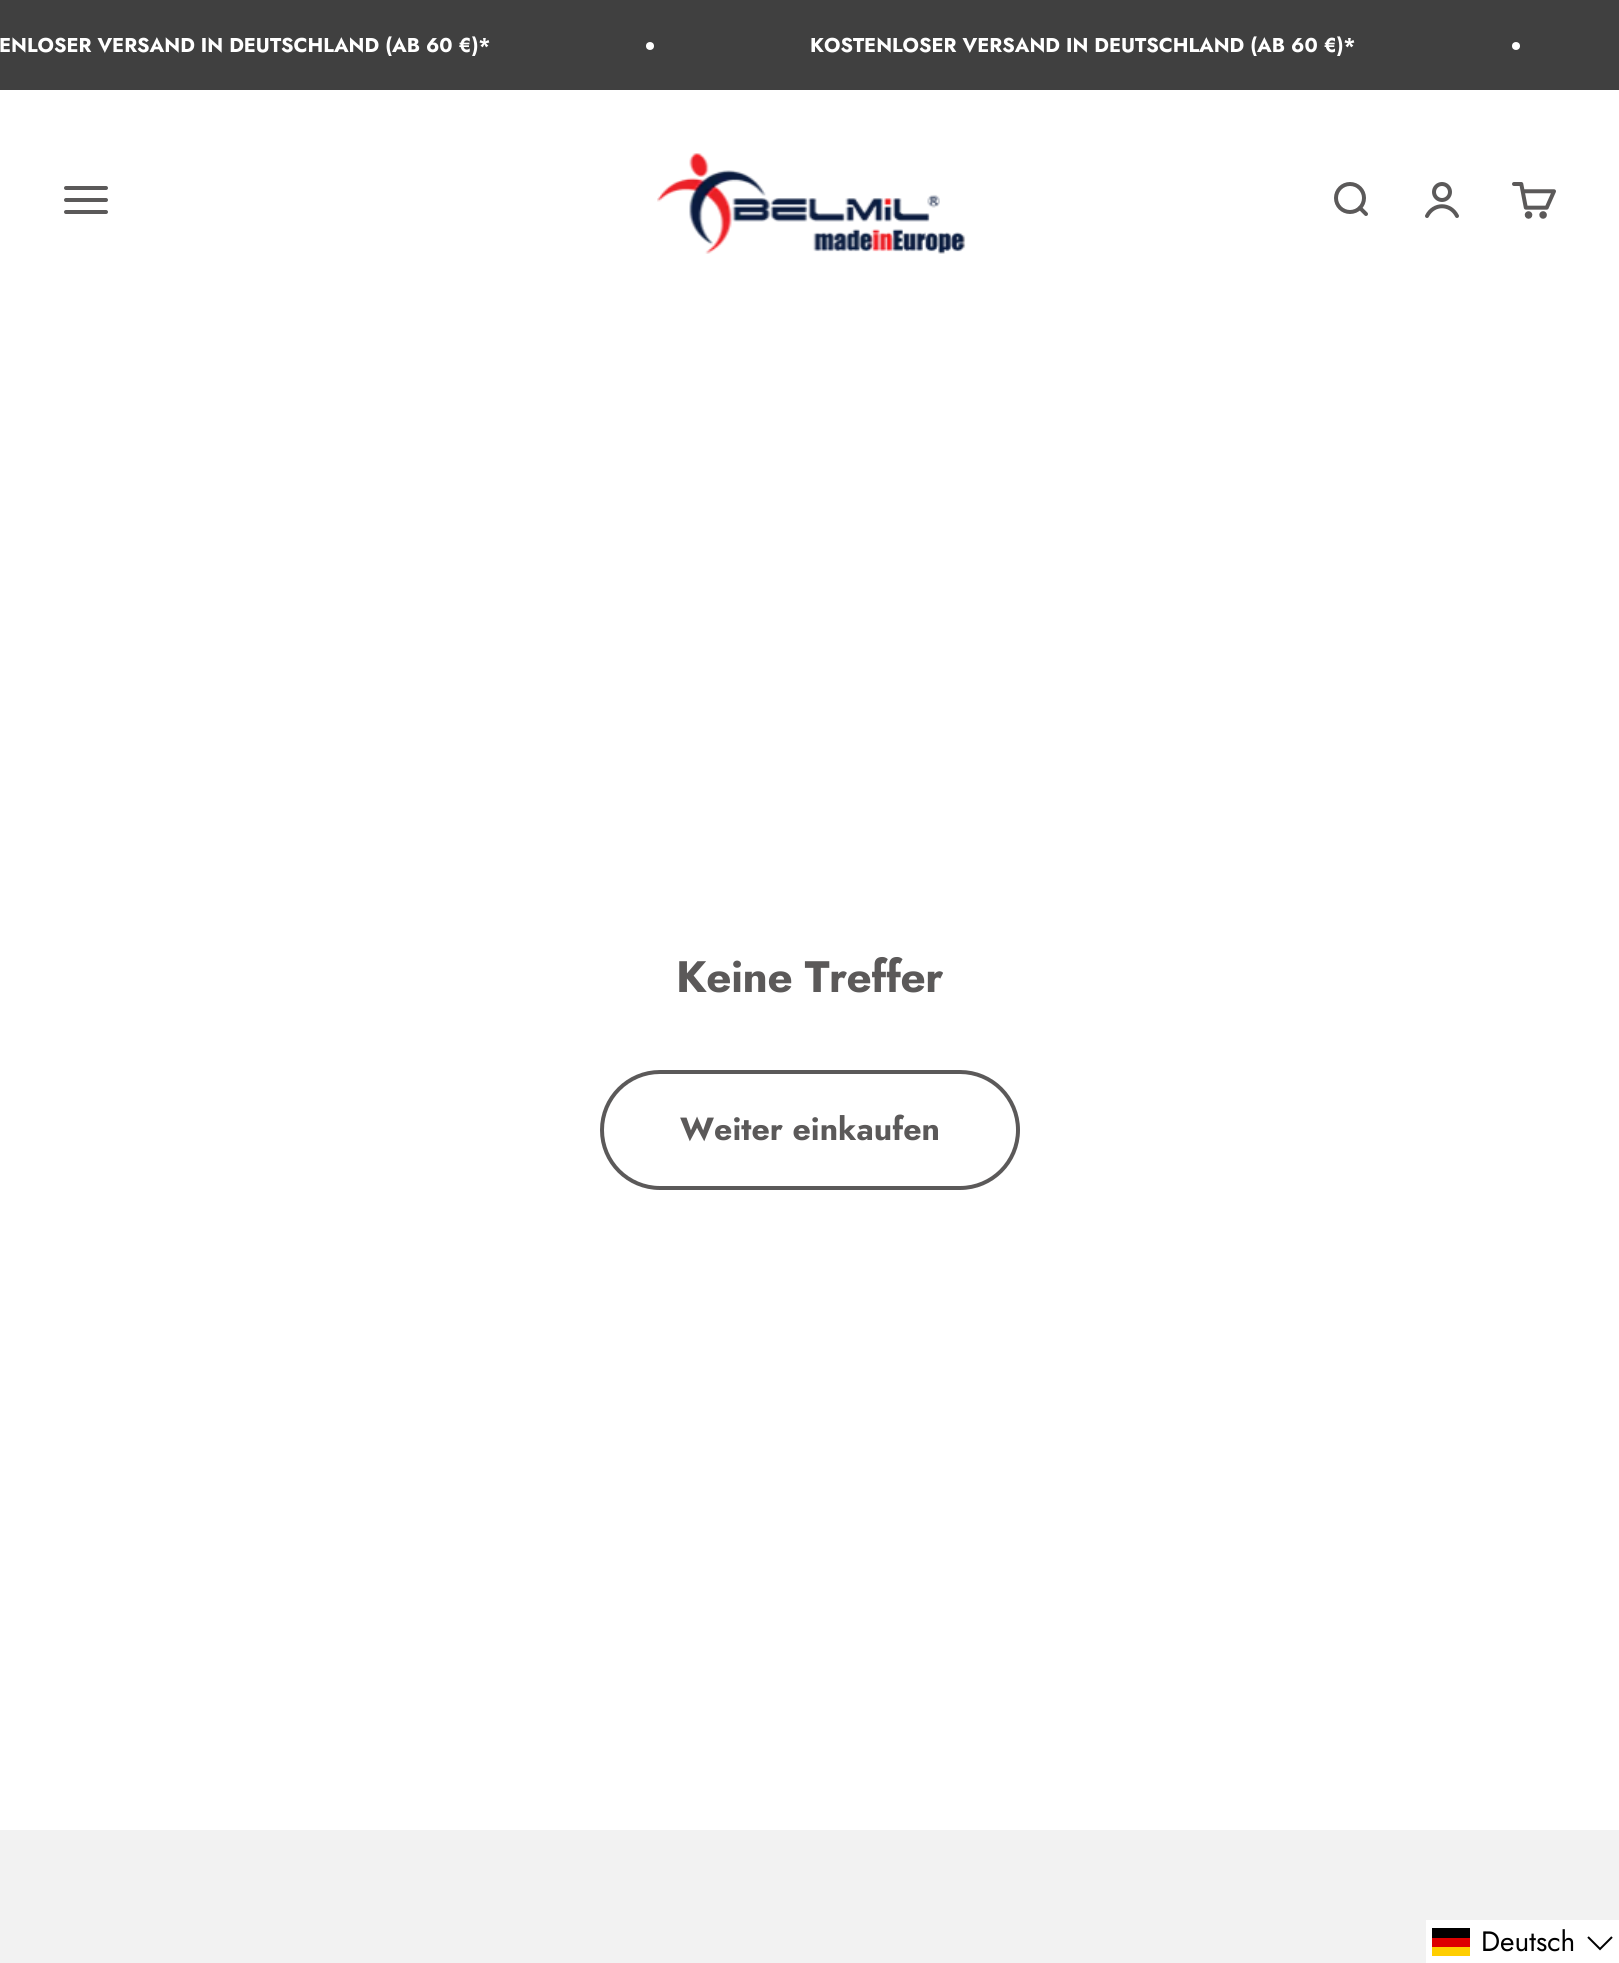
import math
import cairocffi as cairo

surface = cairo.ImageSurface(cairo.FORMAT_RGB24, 1619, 1963)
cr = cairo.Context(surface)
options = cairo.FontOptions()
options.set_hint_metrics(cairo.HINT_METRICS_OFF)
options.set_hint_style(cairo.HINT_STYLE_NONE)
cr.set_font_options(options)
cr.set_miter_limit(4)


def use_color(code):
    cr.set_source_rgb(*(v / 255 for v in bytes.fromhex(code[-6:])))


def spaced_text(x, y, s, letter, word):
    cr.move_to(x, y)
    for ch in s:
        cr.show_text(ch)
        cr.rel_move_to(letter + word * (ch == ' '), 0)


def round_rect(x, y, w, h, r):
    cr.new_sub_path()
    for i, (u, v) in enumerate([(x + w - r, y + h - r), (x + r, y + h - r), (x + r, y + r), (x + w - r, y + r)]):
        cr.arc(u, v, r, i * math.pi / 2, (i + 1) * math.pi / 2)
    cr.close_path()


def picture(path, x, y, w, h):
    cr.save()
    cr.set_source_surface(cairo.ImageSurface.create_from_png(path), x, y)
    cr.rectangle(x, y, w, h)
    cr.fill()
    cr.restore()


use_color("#ffffff")
cr.paint()
use_color("#404040")
cr.rectangle(0, 0, 1619, 90)
cr.fill()
cr.select_font_face("Jost", cairo.FONT_SLANT_NORMAL, cairo.FONT_WEIGHT_BOLD)
cr.set_font_size(20)
use_color("#ffffff")
cr.move_to(-1, 52)
cr.show_text("ENLOSER VERSAND IN DEUTSCHLAND (AB 60 €)*")
cr.new_path()
cr.arc(650, 46, 4, 0, 2 * math.pi)
cr.fill()
cr.move_to(810, 52)
cr.show_text("KOSTENLOSER VERSAND IN DEUTSCHLAND (AB 60 €)*")
cr.new_path()
cr.arc(1516, 46, 4, 0, 2 * math.pi)
cr.fill()
cr.new_path()
cr.move_to(66, 188)
cr.line_to(106, 188)
cr.move_to(66, 200)
cr.line_to(106, 200)
cr.move_to(66, 212)
cr.line_to(106, 212)
use_color("#5b5959")
cr.set_line_width(4)
cr.set_line_cap(cairo.LINE_CAP_ROUND)
cr.stroke()
picture("img1.png", 657, 153, 309, 101)
cr.arc(1350, 198, 14, 0, 2 * math.pi)
cr.set_line_cap(cairo.LINE_CAP_BUTT)
cr.stroke()
cr.new_path()
cr.move_to(1360, 208)
cr.line_to(1366, 214)
cr.set_line_cap(cairo.LINE_CAP_ROUND)
cr.set_line_join(cairo.LINE_JOIN_ROUND)
cr.stroke()
cr.arc(1442, 192, 8, 0, 2 * math.pi)
cr.set_line_cap(cairo.LINE_CAP_BUTT)
cr.set_line_join(cairo.LINE_JOIN_MITER)
cr.stroke()
cr.new_path()
cr.move_to(1427, 216)
cr.curve_to(1433.5, 203, 1450.5, 203, 1457, 216)
cr.set_line_cap(cairo.LINE_CAP_ROUND)
cr.stroke()
picture("img2.png", 1512, 182, 44, 37)
cr.set_font_size(44)
spaced_text(676, 992, "Keine Treffer", -0.5, 0)
round_rect(602, 1072, 416, 116, 58)
cr.set_line_cap(cairo.LINE_CAP_BUTT)
cr.stroke()
cr.set_font_size(32)
cr.move_to(680, 1140)
cr.show_text("Weiter einkaufen")
use_color("#f2f2f2")
cr.rectangle(0, 1830, 1619, 133)
cr.fill()
use_color("#ffffff")
cr.rectangle(1426, 1920, 193, 43)
cr.fill()
use_color("#ffce00")
cr.rectangle(1432, 1947, 38, 9)
cr.fill()
use_color("#000000")
cr.rectangle(1432, 1928, 38, 10)
cr.fill()
use_color("#dd0000")
cr.rectangle(1432, 1938, 38, 9)
cr.fill()
cr.select_font_face("Jost")
cr.set_font_size(28)
use_color("#000000")
cr.move_to(1481, 1951)
cr.show_text("Deutsch")
cr.new_path()
cr.move_to(1588, 1937)
cr.line_to(1600, 1949)
cr.line_to(1612, 1937)
cr.set_line_width(2)
cr.stroke()
surface.write_to_png("result.png")
